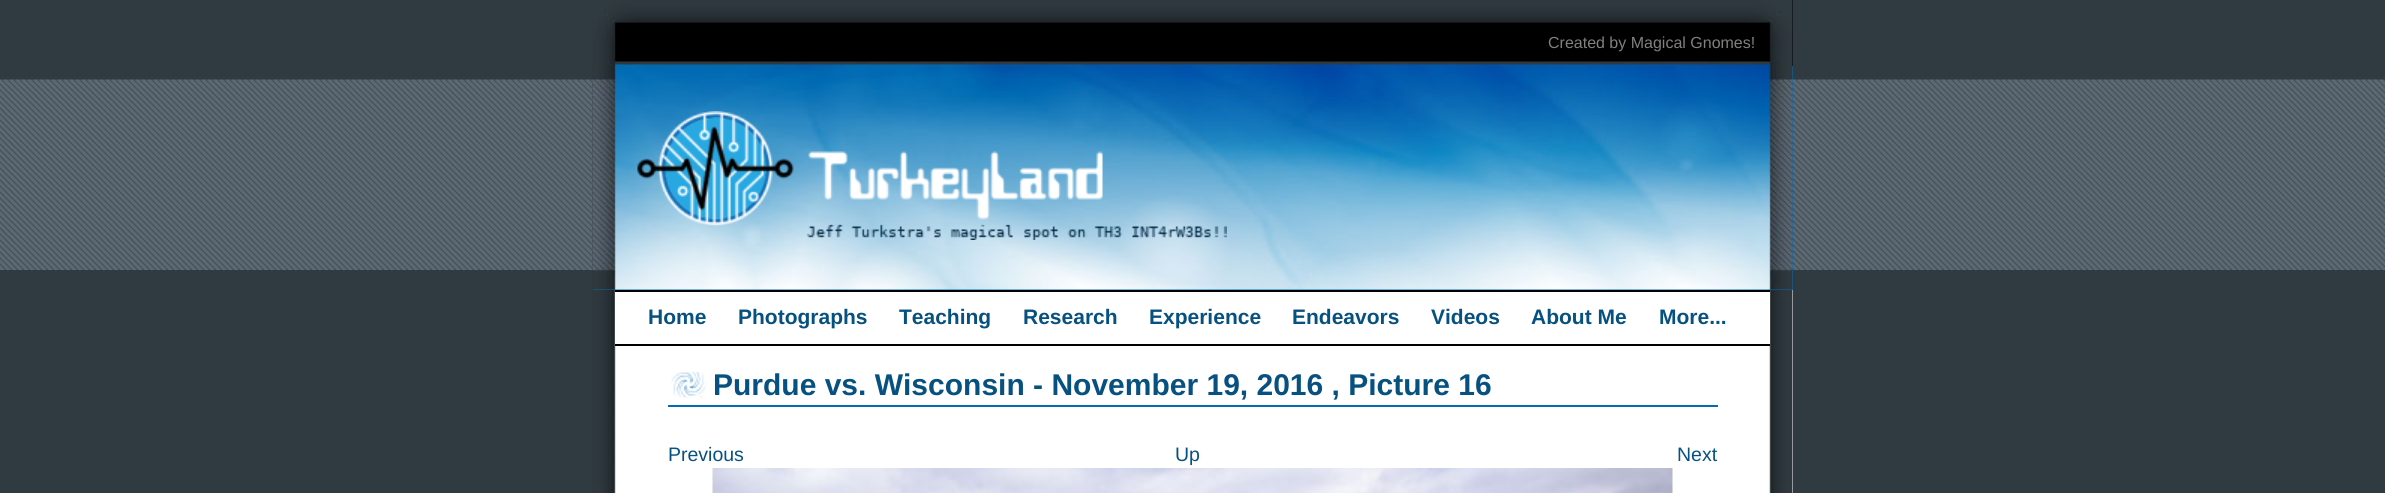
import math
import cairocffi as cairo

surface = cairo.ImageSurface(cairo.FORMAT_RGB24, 2385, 493)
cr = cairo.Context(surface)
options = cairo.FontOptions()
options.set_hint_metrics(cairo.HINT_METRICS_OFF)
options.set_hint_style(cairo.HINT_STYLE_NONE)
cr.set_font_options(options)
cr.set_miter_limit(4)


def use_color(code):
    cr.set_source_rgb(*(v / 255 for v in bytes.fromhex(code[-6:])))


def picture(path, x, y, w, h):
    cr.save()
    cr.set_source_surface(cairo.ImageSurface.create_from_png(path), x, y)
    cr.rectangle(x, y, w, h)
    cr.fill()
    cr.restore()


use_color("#303b41")
cr.paint()
picture("img1.png", 0, 77, 2385, 193)
use_color("#ffffff")
cr.rectangle(1792, 290, 1, 203)
cr.fill()
picture("img2.png", 592, 0, 1201, 493)
use_color("#000000")
cr.rectangle(1792, 0, 1, 66)
cr.fill()
picture("img3.png", 593, 0, 1200, 66)
cr.select_font_face("Liberation Sans")
cr.set_font_size(16)
use_color("#808080")
cr.move_to(1548, 48)
cr.show_text("Created by Magical Gnomes!")
use_color("#036eb4")
cr.rectangle(593, 66, 1200, 224)
cr.fill()
picture("img4.png", 592, 66, 1201, 224)
picture("img5.png", 637, 111, 590, 129)
use_color("#ffffff")
cr.rectangle(615, 292, 1155, 52)
cr.fill()
use_color("#000000")
cr.rectangle(615, 290, 1155, 2)
cr.fill()
cr.rectangle(615, 344, 1155, 2)
cr.fill()
cr.select_font_face("Liberation Sans", cairo.FONT_SLANT_NORMAL, cairo.FONT_WEIGHT_BOLD)
cr.set_font_size(21)
use_color("#075181")
cr.move_to(648, 324)
cr.show_text("Home")
cr.move_to(738, 324)
cr.show_text("Photographs")
cr.move_to(899, 324)
cr.show_text("Teaching")
cr.move_to(1023, 324)
cr.show_text("Research")
cr.move_to(1149, 324)
cr.show_text("Experience")
cr.move_to(1292, 324)
cr.show_text("Endeavors")
cr.move_to(1431, 324)
cr.show_text("Videos")
cr.move_to(1531, 324)
cr.show_text("About Me")
cr.move_to(1659, 324)
cr.show_text("More...")
picture("img6.png", 671, 372, 36, 26)
cr.set_font_size(30)
cr.move_to(713, 395)
cr.show_text("Purdue vs. Wisconsin - November 19, 2016 , Picture 16")
use_color("#036cb4")
cr.rectangle(668, 405, 1050, 2)
cr.fill()
cr.select_font_face("Liberation Sans")
cr.set_font_size(19.5)
use_color("#075181")
cr.move_to(668, 461)
cr.show_text("Previous")
cr.move_to(1175, 461)
cr.show_text("Up")
cr.move_to(1677, 461)
cr.show_text("Next")
picture("img7.png", 712, 468, 961, 25)
surface.write_to_png("result.png")
